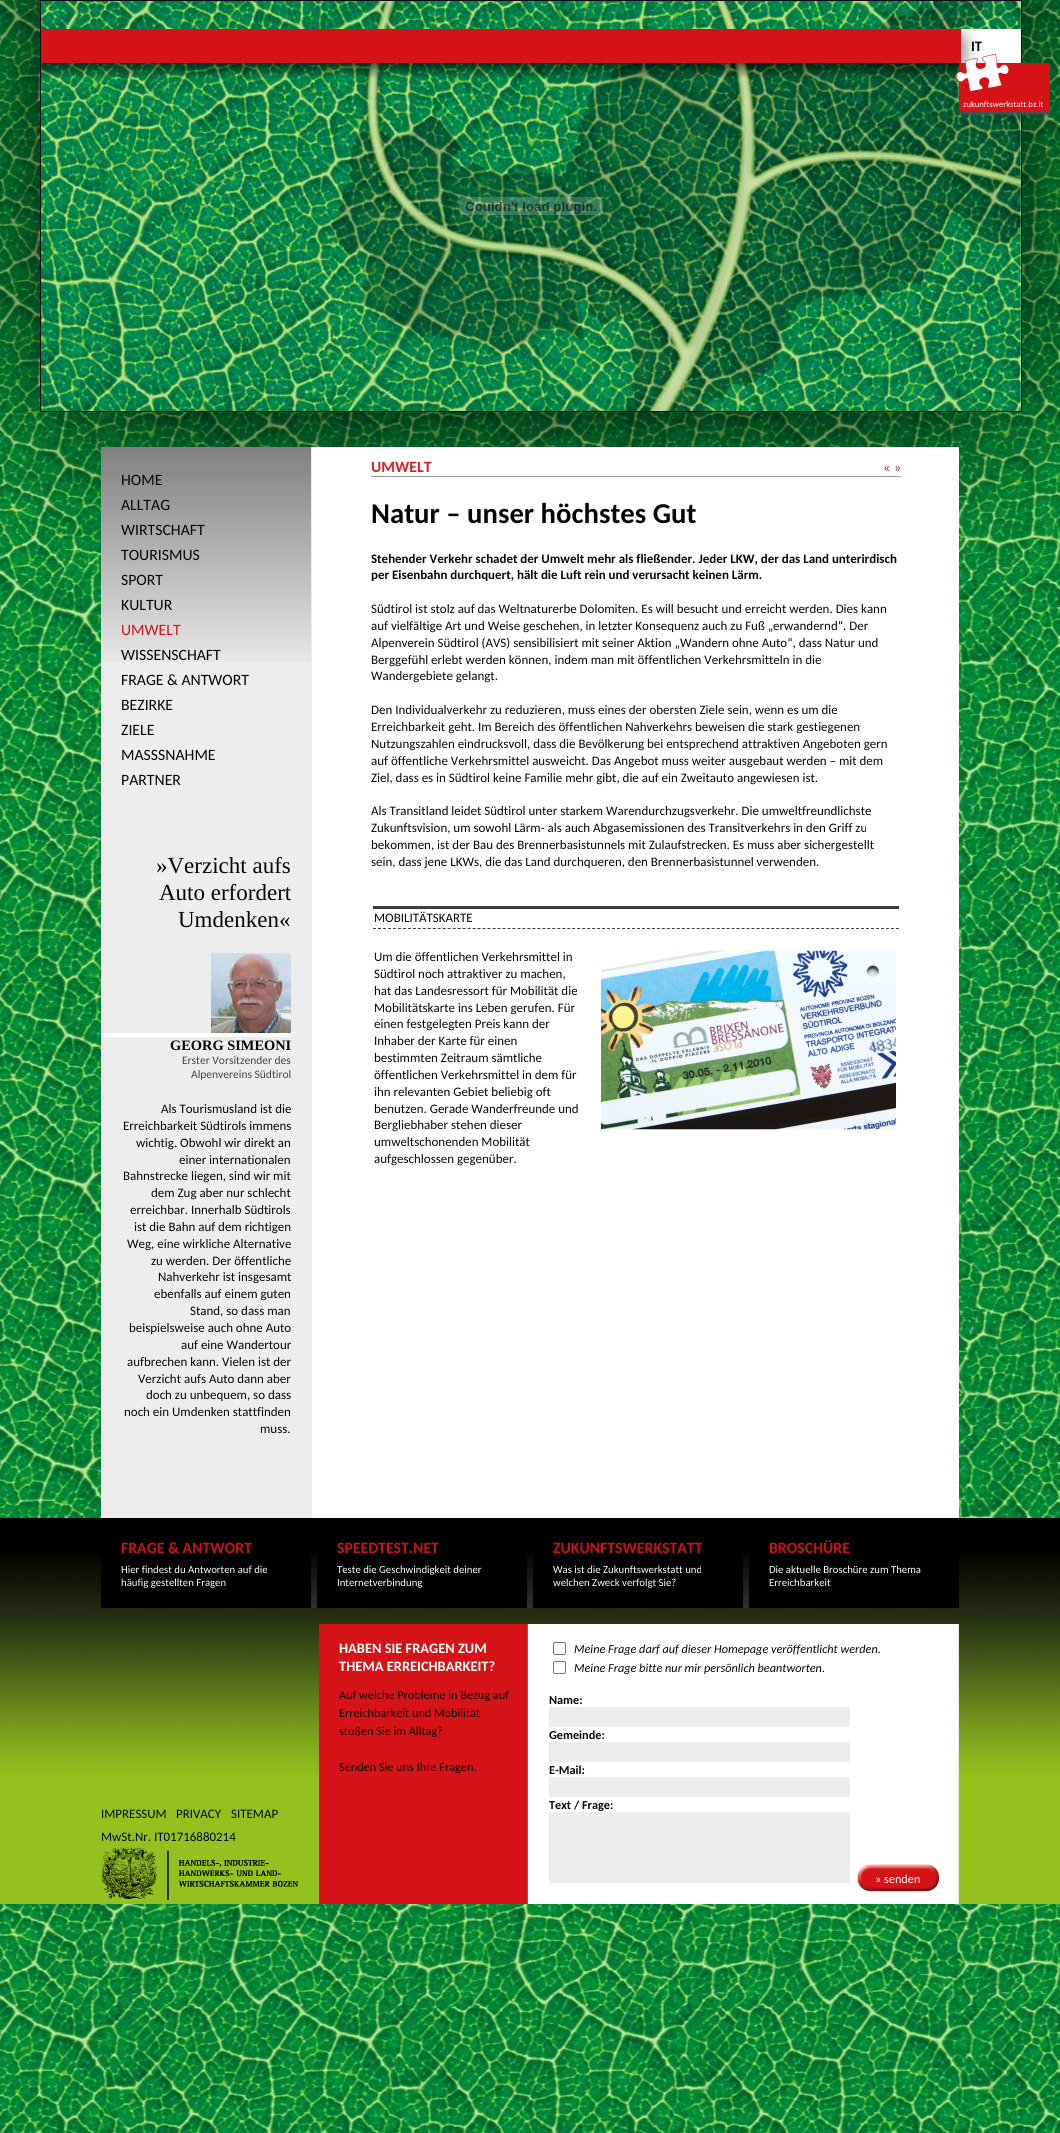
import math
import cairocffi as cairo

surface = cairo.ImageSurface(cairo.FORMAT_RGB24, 1060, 2133)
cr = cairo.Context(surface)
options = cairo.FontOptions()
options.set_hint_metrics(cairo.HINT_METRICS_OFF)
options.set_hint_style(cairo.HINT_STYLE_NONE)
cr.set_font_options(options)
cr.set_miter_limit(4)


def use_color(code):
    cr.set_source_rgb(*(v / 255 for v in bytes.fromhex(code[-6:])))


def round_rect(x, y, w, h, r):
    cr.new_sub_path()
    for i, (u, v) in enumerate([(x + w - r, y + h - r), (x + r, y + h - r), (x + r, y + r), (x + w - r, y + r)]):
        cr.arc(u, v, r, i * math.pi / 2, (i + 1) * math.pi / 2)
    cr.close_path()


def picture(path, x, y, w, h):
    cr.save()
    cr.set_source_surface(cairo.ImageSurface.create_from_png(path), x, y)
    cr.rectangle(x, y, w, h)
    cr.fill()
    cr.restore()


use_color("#ffffff")
cr.paint()
picture("img1.png", 0, 0, 1060, 2133)
picture("img2.png", 0, 0, 1060, 539)
cr.rectangle(40.5, 0.5, 981, 411)
use_color("#100f15")
cr.set_line_width(1)
cr.stroke()
picture("img3.png", 41, 1, 980, 410)
picture("img4.png", 459, 197, 144, 18)
picture("img5.png", 41, 29, 920, 49)
use_color("#ffffff")
cr.rectangle(983, 29, 38, 34)
cr.fill()
picture("img6.png", 961, 29, 22, 34)
cr.select_font_face("Carlito", cairo.FONT_SLANT_NORMAL, cairo.FONT_WEIGHT_BOLD)
cr.set_font_size(14.4)
use_color("#060606")
cr.move_to(971, 51)
cr.show_text("IT")
picture("img7.png", 956, 53, 94, 64)
cr.select_font_face("Carlito")
cr.set_font_size(8.6)
use_color("#ffffff")
cr.move_to(963, 107)
cr.show_text("zukunftswerkstatt.bz.it")
picture("img8.png", 101, 447, 858, 1071)
picture("img9.png", 101, 447, 210, 215)
cr.set_font_size(15.75)
use_color("#060606")
cr.move_to(121, 485)
cr.show_text("HOME")
cr.move_to(121, 510)
cr.show_text("ALLTAG")
cr.move_to(121, 535)
cr.show_text("WIRTSCHAFT")
cr.move_to(121, 560)
cr.show_text("TOURISMUS")
cr.move_to(121, 585)
cr.show_text("SPORT")
cr.move_to(121, 610)
cr.show_text("KULTUR")
use_color("#d61319")
cr.move_to(121, 635)
cr.show_text("UMWELT")
use_color("#060606")
cr.move_to(121, 660)
cr.show_text("WISSENSCHAFT")
cr.move_to(121, 685)
cr.show_text("FRAGE & ANTWORT")
cr.move_to(121, 710)
cr.show_text("BEZIRKE")
cr.move_to(121, 735)
cr.show_text("ZIELE")
cr.move_to(121, 760)
cr.show_text("MASSSNAHME")
cr.move_to(121, 785)
cr.show_text("PARTNER")
cr.select_font_face("Liberation Serif")
cr.set_font_size(23)
cr.move_to(156, 873)
cr.show_text("»Verzicht aufs")
cr.move_to(159, 900)
cr.show_text("Auto erfordert")
cr.move_to(178, 927)
cr.show_text("Umdenken«")
use_color("#ffffff")
cr.rectangle(101, 1033, 190, 4)
cr.fill()
picture("img10.png", 101, 953, 190, 80)
cr.select_font_face("Liberation Serif", cairo.FONT_SLANT_NORMAL, cairo.FONT_WEIGHT_BOLD)
cr.set_font_size(14.4)
use_color("#060606")
cr.move_to(170, 1050)
cr.show_text("GEORG SIMEONI")
cr.select_font_face("Carlito")
cr.set_font_size(11.5)
use_color("#444444")
cr.move_to(182, 1064)
cr.show_text("Erster Vorsitzender des")
cr.move_to(191, 1078)
cr.show_text("Alpenvereins Südtirol")
cr.set_font_size(12.95)
use_color("#060606")
cr.move_to(161, 1113)
cr.show_text("Als Tourismusland ist die")
cr.move_to(123, 1130)
cr.show_text("Erreichbarkeit Südtirols immens")
cr.move_to(136, 1147)
cr.show_text("wichtig. Obwohl wir direkt an")
cr.move_to(179, 1164)
cr.show_text("einer internationalen")
cr.move_to(123, 1180)
cr.show_text("Bahnstrecke liegen, sind wir mit")
cr.move_to(151, 1197)
cr.show_text("dem Zug aber nur schlecht")
cr.move_to(130, 1214)
cr.show_text("erreichbar. Innerhalb Südtirols")
cr.move_to(134, 1231)
cr.show_text("ist die Bahn auf dem richtigen")
cr.move_to(127, 1248)
cr.show_text("Weg, eine wirkliche Alternative")
cr.move_to(151, 1265)
cr.show_text("zu werden. Der öffentliche")
cr.move_to(158, 1281)
cr.show_text("Nahverkehr ist insgesamt")
cr.move_to(154, 1298)
cr.show_text("ebenfalls auf einem guten")
cr.move_to(190, 1315)
cr.show_text("Stand, so dass man")
cr.move_to(129, 1332)
cr.show_text("beispielsweise auch ohne Auto")
cr.move_to(181, 1349)
cr.show_text("auf eine Wandertour")
cr.move_to(127, 1366)
cr.show_text("aufbrechen kann. Vielen ist der")
cr.move_to(138, 1383)
cr.show_text("Verzicht aufs Auto dann aber")
cr.move_to(146, 1399)
cr.show_text("doch zu unbequem, so dass")
cr.move_to(124, 1416)
cr.show_text("noch ein Umdenken stattfinden")
cr.move_to(260, 1433)
cr.show_text("muss.")
use_color("#9c9d9f")
cr.rectangle(371, 476, 530, 1)
cr.fill()
cr.select_font_face("Carlito", cairo.FONT_SLANT_NORMAL, cairo.FONT_WEIGHT_BOLD)
cr.set_font_size(15.75)
use_color("#d91f20")
cr.move_to(371, 472)
cr.show_text("UMWELT")
cr.select_font_face("Carlito")
cr.set_font_size(14)
cr.move_to(883, 472)
cr.show_text("«")
cr.move_to(894, 472)
cr.show_text("»")
cr.select_font_face("Carlito", cairo.FONT_SLANT_NORMAL, cairo.FONT_WEIGHT_BOLD)
cr.set_font_size(28.75)
use_color("#060606")
cr.move_to(371, 523)
cr.show_text("Natur – unser höchstes Gut")
cr.set_font_size(12.95)
cr.move_to(371, 563)
cr.show_text("Stehender Verkehr schadet der Umwelt mehr als fließender. Jeder LKW, der das Land unterirdisch")
cr.move_to(371, 579)
cr.show_text("per Eisenbahn durchquert, hält die Luft rein und verursacht keinen Lärm.")
cr.select_font_face("Carlito")
cr.move_to(371, 613)
cr.show_text("Südtirol ist stolz auf das Weltnaturerbe Dolomiten. Es will besucht und erreicht werden. Dies kann")
cr.move_to(371, 630)
cr.show_text("auf vielfältige Art und Weise geschehen, in letzter Konsequenz auch zu Fuß „erwandernd“. Der")
cr.move_to(371, 647)
cr.show_text("Alpenverein Südtirol (AVS) sensibilisiert mit seiner Aktion „Wandern ohne Auto“, dass Natur und")
cr.move_to(371, 664)
cr.show_text("Berggefühl erlebt werden können, indem man mit öffentlichen Verkehrsmitteln in die")
cr.move_to(371, 680)
cr.show_text("Wandergebiete gelangt.")
cr.move_to(371, 714)
cr.show_text("Den Individualverkehr zu reduzieren, muss eines der obersten Ziele sein, wenn es um die")
cr.move_to(371, 731)
cr.show_text("Erreichbarkeit geht. Im Bereich des öffentlichen Nahverkehrs beweisen die stark gestiegenen")
cr.move_to(371, 748)
cr.show_text("Nutzungszahlen eindrucksvoll, dass die Bevölkerung bei entsprechend attraktiven Angeboten gern")
cr.move_to(371, 765)
cr.show_text("auf öffentliche Verkehrsmittel ausweicht. Das Angebot muss weiter ausgebaut werden – mit dem")
cr.move_to(371, 782)
cr.show_text("Ziel, dass es in Südtirol keine Familie mehr gibt, die auf ein Zweitauto angewiesen ist.")
cr.move_to(371, 815)
cr.show_text("Als Transitland leidet Südtirol unter starkem Warendurchzugsverkehr. Die umweltfreundlichste")
cr.move_to(371, 832)
cr.show_text("Zukunftsvision, um sowohl Lärm- als auch Abgasemissionen des Transitverkehrs in den Griff zu")
cr.move_to(371, 849)
cr.show_text("bekommen, ist der Bau des Brennerbasistunnels mit Zulaufstrecken. Es muss aber sichergestellt")
cr.move_to(371, 866)
cr.show_text("sein, dass jene LKWs, die das Land durchqueren, den Brennerbasistunnel verwenden.")
use_color("#3f3f3f")
cr.rectangle(373, 906, 526, 3)
cr.fill()
cr.new_path()
cr.move_to(373, 928.5)
cr.line_to(899, 928.5)
cr.set_dash([3, 1.98])
cr.stroke()
use_color("#060606")
cr.move_to(374, 922)
cr.show_text("MOBILITÄTSKARTE")
cr.move_to(374, 961)
cr.show_text("Um die öffentlichen Verkehrsmittel in")
cr.move_to(374, 978)
cr.show_text("Südtirol noch attraktiver zu machen,")
cr.move_to(374, 995)
cr.show_text("hat das Landesressort für Mobilität die")
cr.move_to(374, 1012)
cr.show_text("Mobilitätskarte ins Leben gerufen. Für")
cr.move_to(374, 1028)
cr.show_text("einen festgelegten Preis kann der")
cr.move_to(374, 1045)
cr.show_text("Inhaber der Karte für einen")
cr.move_to(374, 1062)
cr.show_text("bestimmten Zeitraum sämtliche")
cr.move_to(374, 1079)
cr.show_text("öffentlichen Verkehrsmittel in dem für")
cr.move_to(374, 1096)
cr.show_text("ihn relevanten Gebiet beliebig oft")
cr.move_to(374, 1113)
cr.show_text("benutzen. Gerade Wanderfreunde und")
cr.move_to(374, 1129)
cr.show_text("Bergliebhaber stehen dieser")
cr.move_to(374, 1146)
cr.show_text("umweltschonenden Mobilität")
cr.move_to(374, 1163)
cr.show_text("aufgeschlossen gegenüber.")
picture("img11.png", 601, 950, 295, 180)
use_color("#94c11e")
cr.rectangle(0, 1774, 1060, 130)
cr.fill()
picture("img12.png", 0, 1518, 1060, 256)
picture("img13.png", 311, 1554, 438, 54)
use_color("#000000")
cr.rectangle(101, 1550, 210, 58)
cr.fill()
cr.select_font_face("Carlito", cairo.FONT_SLANT_NORMAL, cairo.FONT_WEIGHT_BOLD)
cr.set_font_size(15.75)
use_color("#cb1418")
cr.move_to(121, 1553)
cr.show_text("FRAGE & ANTWORT")
cr.select_font_face("Carlito")
cr.set_font_size(10.75)
use_color("#ffffff")
cr.move_to(121, 1573)
cr.show_text("Hier findest du Antworten auf die")
cr.move_to(121, 1586)
cr.show_text("häufig gestellten Fragen")
use_color("#000000")
cr.rectangle(317, 1550, 210, 58)
cr.fill()
cr.select_font_face("Carlito", cairo.FONT_SLANT_NORMAL, cairo.FONT_WEIGHT_BOLD)
cr.set_font_size(15.75)
use_color("#cb1418")
cr.move_to(337, 1553)
cr.show_text("SPEEDTEST.NET")
cr.select_font_face("Carlito")
cr.set_font_size(10.75)
use_color("#ffffff")
cr.move_to(337, 1573)
cr.show_text("Teste die Geschwindigkeit deiner")
cr.move_to(337, 1586)
cr.show_text("Internetverbindung")
use_color("#000000")
cr.rectangle(533, 1550, 210, 58)
cr.fill()
cr.select_font_face("Carlito", cairo.FONT_SLANT_NORMAL, cairo.FONT_WEIGHT_BOLD)
cr.set_font_size(15.75)
use_color("#cb1418")
cr.move_to(553, 1553)
cr.show_text("ZUKUNFTSWERKSTATT")
cr.select_font_face("Carlito")
cr.set_font_size(10.75)
use_color("#ffffff")
cr.move_to(553, 1573)
cr.show_text("Was ist die Zukunftswerkstatt und")
cr.move_to(553, 1586)
cr.show_text("welchen Zweck verfolgt Sie?")
use_color("#000000")
cr.rectangle(749, 1550, 210, 58)
cr.fill()
cr.select_font_face("Carlito", cairo.FONT_SLANT_NORMAL, cairo.FONT_WEIGHT_BOLD)
cr.set_font_size(15.75)
use_color("#cb1418")
cr.move_to(769, 1553)
cr.show_text("BROSCHÜRE")
cr.select_font_face("Carlito")
cr.set_font_size(10.75)
use_color("#ffffff")
cr.move_to(769, 1573)
cr.show_text("Die aktuelle Broschüre zum Thema")
cr.move_to(769, 1586)
cr.show_text("Erreichbarkeit")
cr.set_font_size(12.95)
use_color("#060606")
cr.move_to(101, 1818)
cr.show_text("IMPRESSUM")
cr.move_to(176, 1818)
cr.show_text("PRIVACY")
cr.move_to(231, 1818)
cr.show_text("SITEMAP")
cr.move_to(101, 1841)
cr.show_text("MwSt.Nr. IT01716880214")
picture("img14.png", 101, 1847, 198, 53)
picture("img15.png", 319, 1624, 640, 280)
cr.select_font_face("Carlito", cairo.FONT_SLANT_NORMAL, cairo.FONT_WEIGHT_BOLD)
cr.set_font_size(14.4)
use_color("#ffffff")
cr.move_to(339, 1653)
cr.show_text("HABEN SIE FRAGEN ZUM")
cr.move_to(339, 1671)
cr.show_text("THEMA ERREICHBARKEIT?")
cr.select_font_face("Carlito")
cr.set_font_size(12.25)
use_color("#060606")
cr.move_to(339, 1699)
cr.show_text("Auf welche Probleme in Bezug auf")
cr.move_to(339, 1717)
cr.show_text("Erreichbarkeit und Mobilität")
cr.move_to(339, 1735)
cr.show_text("stoßen Sie im Alltag?")
cr.move_to(339, 1771)
cr.show_text("Senden Sie uns Ihre Fragen.")
round_rect(553.5, 1642.5, 12, 12, 1.5)
use_color("#767676")
cr.set_dash([])
cr.stroke()
cr.select_font_face("Carlito", cairo.FONT_SLANT_ITALIC)
use_color("#060606")
cr.move_to(574, 1653)
cr.show_text("Meine Frage darf auf dieser Homepage veröffentlicht werden.")
round_rect(553.5, 1661.5, 12, 12, 1.5)
use_color("#767676")
cr.stroke()
use_color("#060606")
cr.move_to(574, 1672)
cr.show_text("Meine Frage bitte nur mir persönlich beantworten.")
cr.select_font_face("Carlito", cairo.FONT_SLANT_NORMAL, cairo.FONT_WEIGHT_BOLD)
cr.move_to(549, 1704)
cr.show_text("Name:")
use_color("#ededed")
cr.rectangle(549, 1707, 301, 20)
cr.fill()
use_color("#060606")
cr.move_to(549, 1739)
cr.show_text("Gemeinde:")
use_color("#ededed")
cr.rectangle(549, 1742, 301, 20)
cr.fill()
use_color("#060606")
cr.move_to(549, 1774)
cr.show_text("E-Mail:")
use_color("#ededed")
cr.rectangle(549, 1777, 301, 20)
cr.fill()
use_color("#060606")
cr.move_to(549, 1809)
cr.show_text("Text / Frage:")
use_color("#ededed")
cr.rectangle(549, 1812, 301, 71)
cr.fill()
picture("img16.png", 857, 1864, 82, 28)
cr.select_font_face("Carlito")
use_color("#ffffff")
cr.move_to(875, 1883)
cr.show_text("» senden")
surface.write_to_png("result.png")
